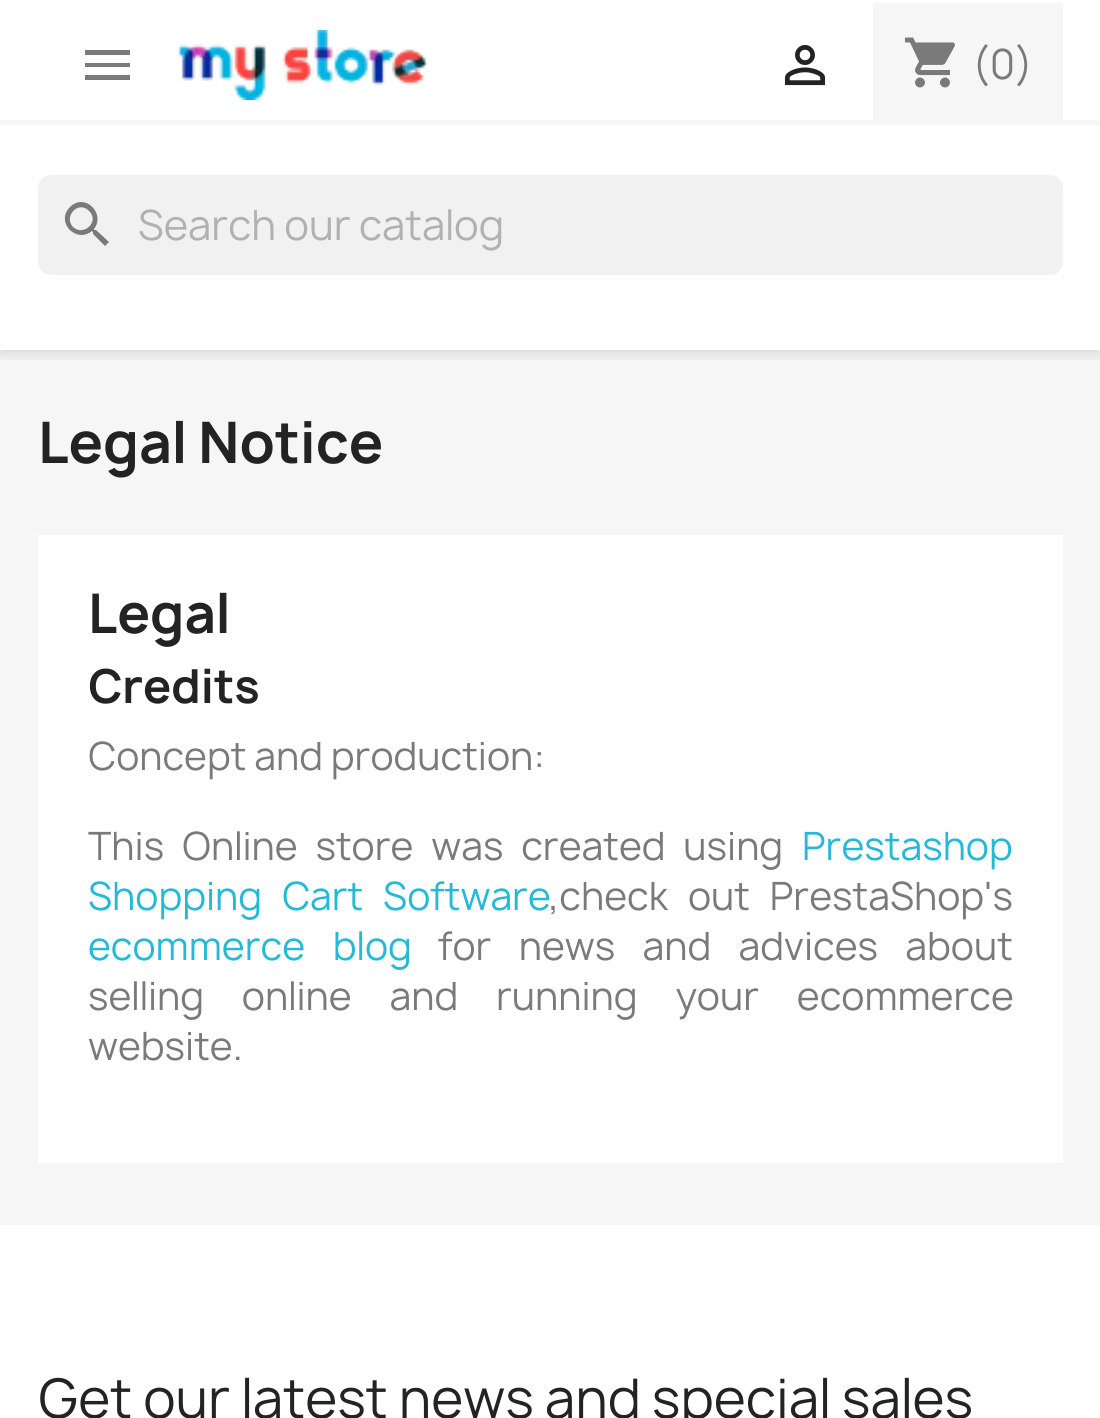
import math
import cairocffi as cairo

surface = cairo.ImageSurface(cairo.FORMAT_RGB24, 1100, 1418)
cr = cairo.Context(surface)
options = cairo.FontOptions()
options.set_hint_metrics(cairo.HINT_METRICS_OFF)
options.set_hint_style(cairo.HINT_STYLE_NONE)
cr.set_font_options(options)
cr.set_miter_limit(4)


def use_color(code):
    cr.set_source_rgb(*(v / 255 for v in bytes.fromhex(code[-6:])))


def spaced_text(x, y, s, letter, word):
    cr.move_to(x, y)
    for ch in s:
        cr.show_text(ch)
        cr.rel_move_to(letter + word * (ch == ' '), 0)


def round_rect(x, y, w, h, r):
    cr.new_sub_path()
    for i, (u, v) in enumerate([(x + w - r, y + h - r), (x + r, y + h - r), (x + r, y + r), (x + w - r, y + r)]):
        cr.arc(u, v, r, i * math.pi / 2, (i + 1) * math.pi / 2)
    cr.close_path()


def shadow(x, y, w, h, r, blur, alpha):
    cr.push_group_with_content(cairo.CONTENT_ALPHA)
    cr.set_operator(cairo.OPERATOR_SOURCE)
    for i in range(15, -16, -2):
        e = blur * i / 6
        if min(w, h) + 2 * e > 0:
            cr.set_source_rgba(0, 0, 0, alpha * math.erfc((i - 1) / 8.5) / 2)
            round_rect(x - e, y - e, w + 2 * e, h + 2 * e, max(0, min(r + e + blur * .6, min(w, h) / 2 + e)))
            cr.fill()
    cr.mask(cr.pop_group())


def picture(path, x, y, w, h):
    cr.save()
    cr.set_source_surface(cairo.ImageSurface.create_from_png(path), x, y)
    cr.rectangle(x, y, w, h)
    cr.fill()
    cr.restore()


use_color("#ffffff")
cr.paint()
use_color("#f6f6f6")
cr.rectangle(0, 350, 1100, 875)
cr.fill()
cr.save()
cr.rectangle(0, 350, 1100, 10)
cr.clip()
use_color("#000000")
shadow(0, 5, 1100, 350, 0, 6, 0.11)
cr.restore()
cr.rectangle(0, 120, 1100, 5)
cr.fill()
use_color("#7a7a7a")
cr.new_path()
cr.move_to(85, 50)
cr.line_to(130, 50)
cr.line_to(130, 55)
cr.line_to(85, 55)
cr.close_path()
cr.move_to(85, 67)
cr.line_to(85, 63)
cr.line_to(130, 63)
cr.line_to(130, 67)
cr.close_path()
cr.move_to(85, 80)
cr.line_to(85, 75)
cr.line_to(130, 75)
cr.line_to(130, 80)
cr.close_path()
cr.fill()
picture("img1.png", 177, 30, 251, 70)
picture("img2.png", 784, 45, 42, 41)
use_color("#f6f6f6")
cr.rectangle(873, 3, 190, 117)
cr.fill()
picture("img3.png", 904, 37, 51, 51)
cr.select_font_face("Manrope")
cr.set_font_size(40)
use_color("#7a7a7a")
cr.move_to(972, 79)
cr.show_text("(0)")
use_color("#f1f1f1")
round_rect(38, 175, 1025, 100, 13)
cr.fill()
use_color("#7a7a7a")
cr.new_path()
cr.move_to(73, 227)
cr.curve_to(84, 237, 100, 221, 89, 211)
cr.curve_to(79, 200, 63, 216, 73, 227)
cr.close_path()
cr.move_to(96, 230)
cr.line_to(109, 242)
cr.line_to(105, 246)
cr.line_to(93, 234)
cr.line_to(93, 232)
cr.line_to(92, 231)
cr.curve_to(76, 244, 55, 222, 70, 207)
cr.curve_to(85, 192, 106, 214, 94, 229)
cr.line_to(94, 230)
cr.close_path()
cr.fill()
use_color("#b1b1b1")
cr.move_to(138, 240)
cr.show_text("Search our catalog")
cr.select_font_face("Manrope", cairo.FONT_SLANT_NORMAL, cairo.FONT_WEIGHT_BOLD)
cr.set_font_size(55)
use_color("#232323")
cr.move_to(38, 463)
cr.show_text("Legal Notice")
use_color("#ffffff")
cr.rectangle(38, 535, 1025, 628)
cr.fill()
cr.set_font_size(52.5)
use_color("#232323")
cr.move_to(88, 633)
cr.show_text("Legal")
cr.set_font_size(45)
cr.move_to(88, 703)
cr.show_text("Credits")
cr.select_font_face("Manrope")
cr.set_font_size(37.5)
use_color("#7a7a7a")
cr.move_to(88, 770)
cr.show_text("Concept and production:")
spaced_text(88, 860, "This Online store was created using", 0, 10)
use_color("#24b9d7")
cr.move_to(802, 860)
cr.show_text("Prestashop")
spaced_text(88, 910, "Shopping Cart Software", 0, 12)
use_color("#7a7a7a")
spaced_text(549, 910, ",check out PrestaShop's", 0, 12)
use_color("#24b9d7")
spaced_text(88, 960, "ecommerce blog", 0, 20)
use_color("#7a7a7a")
spaced_text(438, 960, "for news and advices about", 0, 19.5)
spaced_text(88, 1010, "selling online and running your ecommerce", 0, 30)
cr.move_to(88, 1060)
cr.show_text("website.")
cr.set_font_size(52.5)
use_color("#232323")
cr.move_to(38, 1418)
cr.show_text("Get our latest news and special sales")
surface.write_to_png("result.png")
